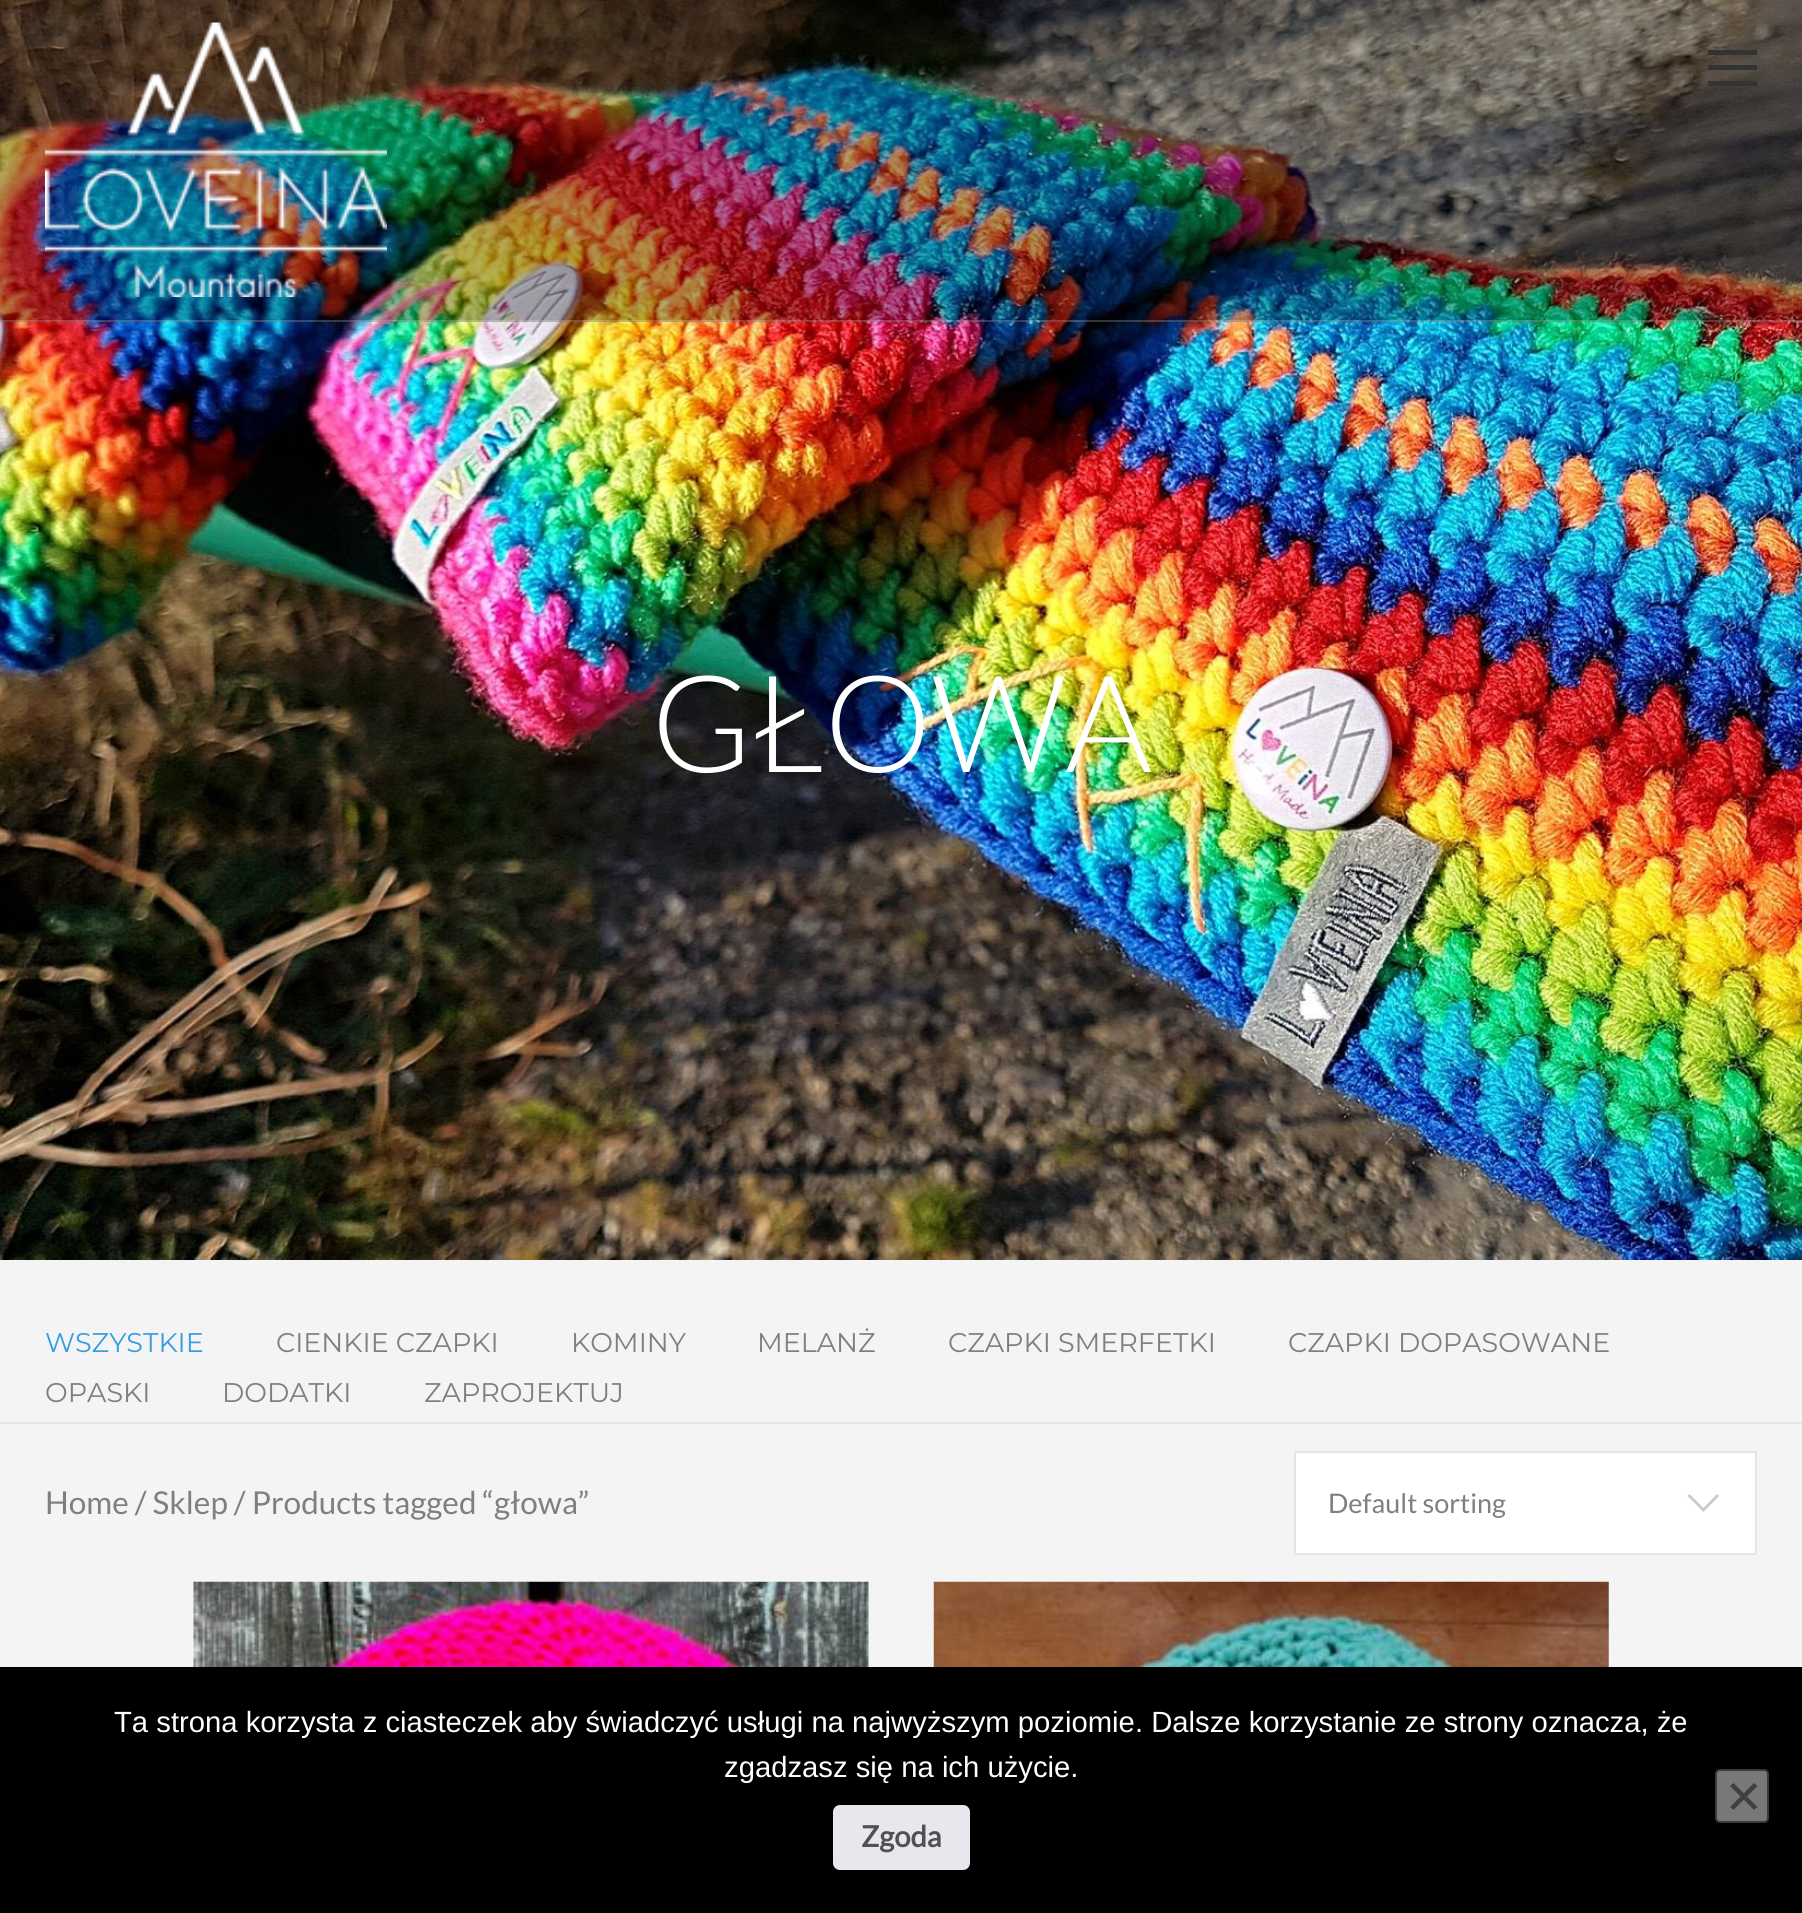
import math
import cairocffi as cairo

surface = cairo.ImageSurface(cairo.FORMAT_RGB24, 1802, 1913)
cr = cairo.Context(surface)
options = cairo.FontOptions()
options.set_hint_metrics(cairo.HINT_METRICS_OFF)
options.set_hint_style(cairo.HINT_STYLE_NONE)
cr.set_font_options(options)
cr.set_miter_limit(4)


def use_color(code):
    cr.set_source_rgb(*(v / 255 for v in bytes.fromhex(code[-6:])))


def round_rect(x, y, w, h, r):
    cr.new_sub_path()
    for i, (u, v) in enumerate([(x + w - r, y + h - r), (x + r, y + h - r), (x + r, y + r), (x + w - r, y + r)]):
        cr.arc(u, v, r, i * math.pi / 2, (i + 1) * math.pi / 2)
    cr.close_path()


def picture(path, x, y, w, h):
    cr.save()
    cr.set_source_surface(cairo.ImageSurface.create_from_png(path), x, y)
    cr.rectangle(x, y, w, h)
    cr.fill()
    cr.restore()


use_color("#f4f4f4")
cr.paint()
picture("img2.png", 0, 0, 1802, 1260)
cr.set_source_rgba(0, 0, 0, 0.3)
cr.rectangle(0, 0, 1802, 322)
cr.fill()
cr.set_source_rgba(1, 1, 1, 0.2)
cr.rectangle(0, 320, 1802, 2)
cr.fill()
picture("img1.png", 45, 22, 342, 275)
use_color("#333333")
cr.rectangle(1708, 50, 49, 5)
cr.fill()
cr.rectangle(1708, 65, 49, 5)
cr.fill()
cr.rectangle(1708, 81, 49, 5)
cr.fill()
cr.select_font_face("Lato Light")
cr.set_font_size(135)
use_color("#ffffff")
cr.move_to(651, 772)
cr.show_text("GŁOWA")
use_color("#e5e5e5")
cr.rectangle(0, 1422, 1802, 2)
cr.fill()
cr.select_font_face("Montserrat")
cr.set_font_size(27)
use_color("#389ddf")
cr.move_to(45, 1352)
cr.show_text("WSZYSTKIE")
use_color("#7f7f7f")
cr.move_to(276, 1352)
cr.show_text("CIENKIE CZAPKI")
cr.move_to(571, 1352)
cr.show_text("KOMINY")
cr.move_to(757, 1352)
cr.show_text("MELANŻ")
cr.move_to(948, 1352)
cr.show_text("CZAPKI SMERFETKI")
cr.move_to(1288, 1352)
cr.show_text("CZAPKI DOPASOWANE")
cr.move_to(45, 1402)
cr.show_text("OPASKI")
cr.move_to(222, 1402)
cr.show_text("DODATKI")
cr.move_to(424, 1402)
cr.show_text("ZAPROJEKTUJ")
cr.select_font_face("Lato")
cr.set_font_size(31.5)
cr.move_to(45, 1514)
cr.show_text("Home / Sklep / Products tagged “głowa”")
use_color("#ffffff")
cr.rectangle(1296, 1453, 459, 100)
cr.fill()
use_color("#c9c9c9")
cr.new_path()
cr.move_to(1719, 1496)
cr.line_to(1703.5, 1512)
cr.line_to(1687.5, 1496)
cr.line_to(1689.5, 1494)
cr.line_to(1703.5, 1508)
cr.line_to(1717, 1494)
cr.close_path()
cr.fill()
cr.rectangle(1295, 1452, 461, 102)
use_color("#e5e5e5")
cr.stroke()
cr.set_font_size(27)
use_color("#7f7f7f")
cr.move_to(1328, 1513)
cr.show_text("Default sorting")
picture("img3.png", 193, 1581, 676, 86)
picture("img4.png", 933, 1581, 676, 86)
use_color("#000000")
cr.rectangle(0, 1667, 1802, 246)
cr.fill()
cr.select_font_face("Liberation Sans")
cr.set_font_size(29.25)
use_color("#ffffff")
cr.move_to(114, 1732)
cr.show_text("Ta strona korzysta z ciasteczek aby świadczyć usługi na najwyższym poziomie. Dalsze korzystanie ze strony oznacza, że")
cr.move_to(724, 1777)
cr.show_text("zgadzasz się na ich użycie.")
use_color("#787878")
round_rect(1716, 1770, 52, 52, 4)
cr.fill_preserve()
use_color("#3b3b3b")
cr.stroke()
use_color("#404040")
cr.new_path()
cr.move_to(1754, 1783)
cr.line_to(1757.5, 1786)
cr.line_to(1733.5, 1810)
cr.line_to(1730, 1807)
cr.close_path()
cr.fill()
cr.new_path()
cr.move_to(1730, 1786)
cr.line_to(1733.5, 1783)
cr.line_to(1757.5, 1807)
cr.line_to(1754, 1810)
cr.close_path()
cr.fill()
use_color("#e9e6ed")
round_rect(833, 1805, 137, 65, 7)
cr.fill()
cr.select_font_face("Lato", cairo.FONT_SLANT_NORMAL, cairo.FONT_WEIGHT_BOLD)
use_color("#515151")
cr.move_to(861, 1847)
cr.show_text("Zgoda")
surface.write_to_png("result.png")
